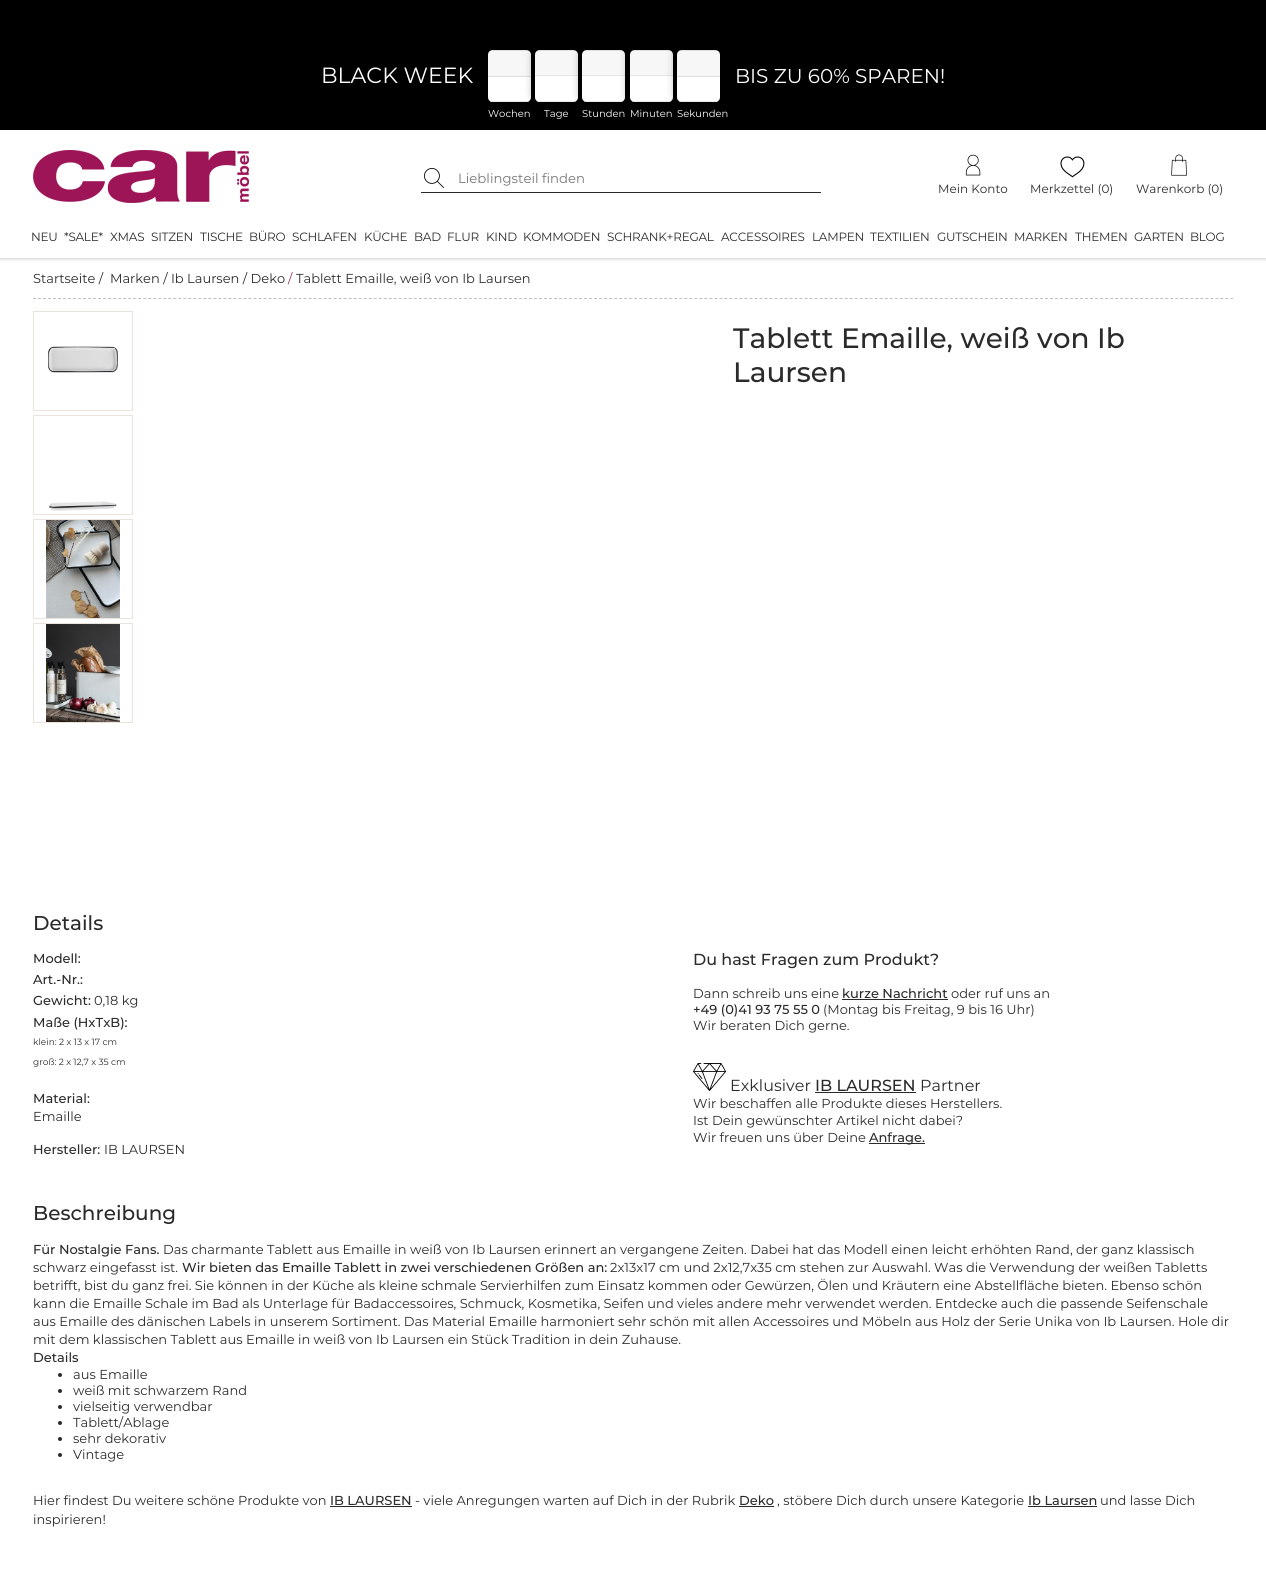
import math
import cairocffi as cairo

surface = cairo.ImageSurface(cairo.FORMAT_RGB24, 1266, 1577)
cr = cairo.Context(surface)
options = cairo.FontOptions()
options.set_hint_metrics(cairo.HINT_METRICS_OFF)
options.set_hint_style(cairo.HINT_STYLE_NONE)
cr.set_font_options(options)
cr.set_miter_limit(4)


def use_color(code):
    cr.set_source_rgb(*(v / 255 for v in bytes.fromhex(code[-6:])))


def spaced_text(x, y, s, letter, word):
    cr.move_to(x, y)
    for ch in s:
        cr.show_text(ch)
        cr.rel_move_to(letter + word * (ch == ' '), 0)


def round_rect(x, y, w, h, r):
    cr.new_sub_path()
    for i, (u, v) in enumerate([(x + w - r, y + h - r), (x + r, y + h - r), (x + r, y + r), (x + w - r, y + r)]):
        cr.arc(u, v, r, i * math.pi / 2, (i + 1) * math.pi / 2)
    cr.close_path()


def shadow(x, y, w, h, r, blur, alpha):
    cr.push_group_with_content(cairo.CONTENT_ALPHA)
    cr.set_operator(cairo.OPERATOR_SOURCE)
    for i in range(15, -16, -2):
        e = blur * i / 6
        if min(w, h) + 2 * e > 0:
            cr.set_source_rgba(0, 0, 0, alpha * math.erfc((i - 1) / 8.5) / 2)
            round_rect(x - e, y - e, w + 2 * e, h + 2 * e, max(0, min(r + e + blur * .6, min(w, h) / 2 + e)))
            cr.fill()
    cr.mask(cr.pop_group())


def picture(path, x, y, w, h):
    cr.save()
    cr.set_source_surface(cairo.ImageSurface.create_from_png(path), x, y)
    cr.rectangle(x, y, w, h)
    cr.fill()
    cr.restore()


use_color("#ffffff")
cr.paint()
cr.save()
cr.rectangle(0, 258, 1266, 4)
cr.clip()
use_color("#253237")
shadow(0, 1, 1266, 258, 0, 2, 0.25)
cr.restore()
use_color("#000000")
cr.rectangle(0, 0, 1266, 130)
cr.fill()
cr.select_font_face("Montserrat")
cr.set_font_size(22)
use_color("#ffffff")
cr.move_to(321, 83)
cr.show_text("BLACK WEEK")
cr.set_font_size(20)
cr.move_to(735, 83)
cr.show_text("BIS ZU 60% SPAREN!")
cr.new_path()
cr.move_to(488, 75)
cr.line_to(531, 75)
cr.line_to(531, 97)
cr.curve_to(531, 100, 529, 102, 526, 102)
cr.line_to(493, 102)
cr.curve_to(490, 102, 488, 100, 488, 97)
cr.close_path()
cr.fill()
use_color("#f7f7f7")
cr.new_path()
cr.move_to(493, 50)
cr.line_to(526, 50)
cr.curve_to(529, 50, 531, 52, 531, 55)
cr.line_to(531, 77)
cr.line_to(488, 77)
cr.line_to(488, 55)
cr.curve_to(488, 52, 490, 50, 493, 50)
cr.close_path()
cr.fill()
cr.set_source_rgba(0, 0, 0, 0.1)
cr.rectangle(491, 50, 38, 1)
cr.fill()
use_color("#dedede")
cr.rectangle(488, 76, 43, 1)
cr.fill()
gradient = cairo.LinearGradient(510, 76, 510, 101)
gradient.add_color_stop_rgba(0, 1, 1, 1, 0.9)
gradient.add_color_stop_rgba(1, 1, 1, 1, 0)
cr.set_source(gradient)
cr.rectangle(488, 98, 43, 2)
cr.fill()
cr.save()
cr.new_path()
cr.move_to(488, 75)
cr.line_to(531, 75)
cr.line_to(531, 97)
cr.curve_to(531, 100, 529, 102, 526, 102)
cr.line_to(493, 102)
cr.curve_to(490, 102, 488, 100, 488, 97)
cr.close_path()
cr.clip()
gradient = cairo.LinearGradient(510, 101, 510, 126)
gradient.add_color_stop_rgba(0, 1, 1, 1, 0.9)
gradient.add_color_stop_rgba(1, 1, 1, 1, 0)
cr.set_source(gradient)
cr.rectangle(488, 101, 43, 1)
cr.fill()
cr.restore()
cr.set_source_rgba(0, 0, 0, 0.1)
cr.rectangle(491, 101, 38, 1)
cr.fill()
cr.set_font_size(10)
use_color("#ffffff")
cr.move_to(488, 117)
cr.show_text("Wochen")
use_color("#000000")
shadow(535, 50, 43, 50, 5, 5, 0.5)
use_color("#f7f7f7")
cr.new_path()
cr.move_to(540, 50)
cr.line_to(573, 50)
cr.curve_to(576, 50, 578, 52, 578, 55)
cr.line_to(578, 77)
cr.line_to(535, 77)
cr.line_to(535, 55)
cr.curve_to(535, 52, 537, 50, 540, 50)
cr.close_path()
cr.fill()
cr.set_source_rgba(0, 0, 0, 0.1)
cr.rectangle(538, 50, 38, 1)
cr.fill()
use_color("#ffffff")
cr.new_path()
cr.move_to(535, 75)
cr.line_to(578, 75)
cr.line_to(578, 97)
cr.curve_to(578, 100, 576, 102, 573, 102)
cr.line_to(540, 102)
cr.curve_to(537, 102, 535, 100, 535, 97)
cr.close_path()
cr.fill()
gradient = cairo.LinearGradient(557, 76, 557, 101)
gradient.add_color_stop_rgba(0, 1, 1, 1, 0.9)
gradient.add_color_stop_rgba(1, 1, 1, 1, 0)
cr.set_source(gradient)
cr.rectangle(535, 98, 43, 2)
cr.fill()
cr.save()
cr.new_path()
cr.move_to(535, 75)
cr.line_to(578, 75)
cr.line_to(578, 97)
cr.curve_to(578, 100, 576, 102, 573, 102)
cr.line_to(540, 102)
cr.curve_to(537, 102, 535, 100, 535, 97)
cr.close_path()
cr.clip()
gradient = cairo.LinearGradient(557, 101, 557, 126)
gradient.add_color_stop_rgba(0, 1, 1, 1, 0.9)
gradient.add_color_stop_rgba(1, 1, 1, 1, 0)
cr.set_source(gradient)
cr.rectangle(535, 101, 43, 1)
cr.fill()
cr.restore()
use_color("#e6e6e6")
cr.rectangle(535, 75, 43, 1)
cr.fill()
cr.set_source_rgba(0, 0, 0, 0.1)
cr.rectangle(538, 101, 38, 1)
cr.fill()
use_color("#ffffff")
cr.move_to(544, 117)
cr.show_text("Tage")
use_color("#000000")
shadow(582, 50, 43, 50, 5, 5, 0.5)
use_color("#f7f7f7")
cr.new_path()
cr.move_to(587, 50)
cr.line_to(620, 50)
cr.curve_to(623, 50, 625, 52, 625, 55)
cr.line_to(625, 77)
cr.line_to(582, 77)
cr.line_to(582, 55)
cr.curve_to(582, 52, 584, 50, 587, 50)
cr.close_path()
cr.fill()
cr.set_source_rgba(0, 0, 0, 0.1)
cr.rectangle(585, 50, 38, 1)
cr.fill()
use_color("#ffffff")
cr.new_path()
cr.move_to(582, 75)
cr.line_to(625, 75)
cr.line_to(625, 97)
cr.curve_to(625, 100, 623, 102, 620, 102)
cr.line_to(587, 102)
cr.curve_to(584, 102, 582, 100, 582, 97)
cr.close_path()
cr.fill()
gradient = cairo.LinearGradient(604, 76, 604, 101)
gradient.add_color_stop_rgba(0, 1, 1, 1, 0.9)
gradient.add_color_stop_rgba(1, 1, 1, 1, 0)
cr.set_source(gradient)
cr.rectangle(582, 98, 43, 2)
cr.fill()
cr.save()
cr.new_path()
cr.move_to(582, 75)
cr.line_to(625, 75)
cr.line_to(625, 97)
cr.curve_to(625, 100, 623, 102, 620, 102)
cr.line_to(587, 102)
cr.curve_to(584, 102, 582, 100, 582, 97)
cr.close_path()
cr.clip()
gradient = cairo.LinearGradient(604, 101, 604, 126)
gradient.add_color_stop_rgba(0, 1, 1, 1, 0.9)
gradient.add_color_stop_rgba(1, 1, 1, 1, 0)
cr.set_source(gradient)
cr.rectangle(582, 101, 43, 1)
cr.fill()
cr.restore()
use_color("#e6e6e6")
cr.rectangle(582, 75, 43, 1)
cr.fill()
cr.set_source_rgba(0, 0, 0, 0.1)
cr.rectangle(585, 101, 38, 1)
cr.fill()
use_color("#ffffff")
cr.move_to(582, 117)
cr.show_text("Stunden")
use_color("#000000")
shadow(630, 50, 43, 50, 5, 5, 0.5)
use_color("#f7f7f7")
cr.new_path()
cr.move_to(635, 50)
cr.line_to(668, 50)
cr.curve_to(671, 50, 673, 52, 673, 55)
cr.line_to(673, 77)
cr.line_to(630, 77)
cr.line_to(630, 55)
cr.curve_to(630, 52, 632, 50, 635, 50)
cr.close_path()
cr.fill()
cr.set_source_rgba(0, 0, 0, 0.1)
cr.rectangle(633, 50, 38, 1)
cr.fill()
use_color("#ffffff")
cr.new_path()
cr.move_to(630, 75)
cr.line_to(673, 75)
cr.line_to(673, 97)
cr.curve_to(673, 100, 671, 102, 668, 102)
cr.line_to(635, 102)
cr.curve_to(632, 102, 630, 100, 630, 97)
cr.close_path()
cr.fill()
gradient = cairo.LinearGradient(652, 76, 652, 101)
gradient.add_color_stop_rgba(0, 1, 1, 1, 0.9)
gradient.add_color_stop_rgba(1, 1, 1, 1, 0)
cr.set_source(gradient)
cr.rectangle(630, 98, 43, 2)
cr.fill()
cr.save()
cr.new_path()
cr.move_to(630, 75)
cr.line_to(673, 75)
cr.line_to(673, 97)
cr.curve_to(673, 100, 671, 102, 668, 102)
cr.line_to(635, 102)
cr.curve_to(632, 102, 630, 100, 630, 97)
cr.close_path()
cr.clip()
gradient = cairo.LinearGradient(652, 101, 652, 126)
gradient.add_color_stop_rgba(0, 1, 1, 1, 0.9)
gradient.add_color_stop_rgba(1, 1, 1, 1, 0)
cr.set_source(gradient)
cr.rectangle(630, 101, 43, 1)
cr.fill()
cr.restore()
use_color("#e6e6e6")
cr.rectangle(630, 75, 43, 1)
cr.fill()
cr.set_source_rgba(0, 0, 0, 0.1)
cr.rectangle(633, 101, 38, 1)
cr.fill()
use_color("#ffffff")
cr.move_to(630, 117)
cr.show_text("Minuten")
use_color("#000000")
shadow(677, 50, 43, 50, 5, 5, 0.5)
use_color("#ffffff")
cr.new_path()
cr.move_to(677, 75)
cr.line_to(720, 75)
cr.line_to(720, 97)
cr.curve_to(720, 100, 718, 102, 715, 102)
cr.line_to(682, 102)
cr.curve_to(679, 102, 677, 100, 677, 97)
cr.close_path()
cr.fill()
use_color("#f7f7f7")
cr.new_path()
cr.move_to(682, 50)
cr.line_to(715, 50)
cr.curve_to(718, 50, 720, 52, 720, 55)
cr.line_to(720, 77)
cr.line_to(677, 77)
cr.line_to(677, 55)
cr.curve_to(677, 52, 679, 50, 682, 50)
cr.close_path()
cr.fill()
cr.set_source_rgba(0, 0, 0, 0.1)
cr.rectangle(680, 50, 38, 1)
cr.fill()
use_color("#dedede")
cr.rectangle(677, 76, 43, 1)
cr.fill()
gradient = cairo.LinearGradient(699, 76, 699, 101)
gradient.add_color_stop_rgba(0, 1, 1, 1, 0.9)
gradient.add_color_stop_rgba(1, 1, 1, 1, 0)
cr.set_source(gradient)
cr.rectangle(677, 98, 43, 2)
cr.fill()
cr.save()
cr.new_path()
cr.move_to(677, 75)
cr.line_to(720, 75)
cr.line_to(720, 97)
cr.curve_to(720, 100, 718, 102, 715, 102)
cr.line_to(682, 102)
cr.curve_to(679, 102, 677, 100, 677, 97)
cr.close_path()
cr.clip()
gradient = cairo.LinearGradient(699, 101, 699, 126)
gradient.add_color_stop_rgba(0, 1, 1, 1, 0.9)
gradient.add_color_stop_rgba(1, 1, 1, 1, 0)
cr.set_source(gradient)
cr.rectangle(677, 101, 43, 1)
cr.fill()
cr.restore()
cr.set_source_rgba(0, 0, 0, 0.1)
cr.rectangle(680, 101, 38, 1)
cr.fill()
use_color("#ffffff")
cr.move_to(677, 117)
cr.show_text("Sekunden")
picture("img1.png", 33, 150, 216, 53)
use_color("#2a2a2a")
cr.rectangle(421, 192, 400, 1)
cr.fill()
picture("img2.png", 424, 168, 20, 20)
cr.set_font_size(13.25)
use_color("#757575")
cr.move_to(458, 183)
cr.show_text("Lieblingsteil finden")
picture("img3.png", 965, 154, 16, 22)
cr.set_font_size(12)
use_color("#2a2a2a")
cr.move_to(938, 193)
cr.show_text("Mein Konto")
picture("img4.png", 1060, 156, 25, 22)
cr.move_to(1030, 193)
cr.show_text("Merkzettel (0)")
picture("img5.png", 1171, 154, 16, 22)
cr.move_to(1136, 193)
cr.show_text("Warenkorb (0)")
spaced_text(31, 241, "NEU", -0.25, 0)
spaced_text(64, 241, "*SALE*", -0.25, 0)
spaced_text(110, 241, "XMAS", -0.25, 0)
spaced_text(151, 241, "SITZEN", -0.25, 0)
spaced_text(200, 241, "TISCHE", -0.25, 0)
spaced_text(249, 241, "BÜRO", -0.25, 0)
spaced_text(292, 241, "SCHLAFEN", -0.25, 0)
spaced_text(364, 241, "KÜCHE", -0.25, 0)
spaced_text(414, 241, "BAD", -0.25, 0)
spaced_text(447, 241, "FLUR", -0.25, 0)
spaced_text(486, 241, "KIND", -0.25, 0)
spaced_text(523, 241, "KOMMODEN", -0.25, 0)
spaced_text(607, 241, "SCHRANK+REGAL", -0.25, 0)
spaced_text(721, 241, "ACCESSOIRES", -0.25, 0)
spaced_text(812, 241, "LAMPEN", -0.25, 0)
spaced_text(870, 241, "TEXTILIEN", -0.25, 0)
spaced_text(937, 241, "GUTSCHEIN", -0.25, 0)
spaced_text(1014, 241, "MARKEN", -0.25, 0)
spaced_text(1075, 241, "THEMEN", -0.25, 0)
spaced_text(1134, 241, "GARTEN", -0.25, 0)
spaced_text(1190, 241, "BLOG", -0.25, 0)
cr.new_path()
cr.move_to(33, 298.5)
cr.line_to(1233, 298.5)
use_color("#c0c0c0")
cr.set_line_width(1)
cr.set_dash([3, 2.01])
cr.stroke()
cr.set_font_size(13)
use_color("#2a2a2a")
cr.move_to(33, 283)
cr.show_text("Startseite /")
cr.move_to(110, 283)
cr.show_text("Marken / Ib Laursen / Deko")
use_color("#97335d")
cr.move_to(288, 283)
cr.show_text("/")
use_color("#2a2a2a")
cr.move_to(296, 283)
cr.show_text("Tablett Emaille, weiß von Ib Laursen")
cr.rectangle(33.5, 311.5, 99, 99)
use_color("#eae3dc")
cr.set_dash([])
cr.stroke()
picture("img6.png", 48, 346, 70, 27)
cr.rectangle(33.5, 415.5, 99, 99)
cr.stroke()
picture("img7.png", 49, 501, 68, 10)
cr.rectangle(33.5, 519.5, 99, 99)
cr.stroke()
picture("img8.png", 46, 520, 74, 98)
cr.rectangle(33.5, 623.5, 99, 99)
cr.stroke()
picture("img9.png", 46, 624, 74, 98)
cr.select_font_face("Montserrat Medium")
cr.set_font_size(28)
use_color("#2a2a2a")
cr.move_to(733, 348)
cr.show_text("Tablett Emaille, weiß von Ib")
cr.move_to(733, 382)
cr.show_text("Laursen")
cr.set_font_size(20)
cr.move_to(33, 930)
cr.show_text("Details")
cr.set_font_size(13)
cr.move_to(33, 963)
cr.show_text("Modell:")
cr.move_to(33, 984)
cr.show_text("Art.-Nr.:")
cr.move_to(33, 1005)
cr.show_text("Gewicht:")
cr.select_font_face("Montserrat")
cr.move_to(94, 1005)
cr.show_text("0,18 kg")
cr.select_font_face("Montserrat Medium")
cr.move_to(33, 1027)
cr.show_text("Maße (HxTxB):")
cr.select_font_face("Montserrat")
cr.set_font_size(9)
cr.move_to(33, 1045)
cr.show_text("klein: 2 x 13 x 17 cm")
cr.move_to(33, 1065)
cr.show_text("groß: 2 x 12,7 x 35 cm")
cr.select_font_face("Montserrat Medium")
cr.set_font_size(13)
cr.move_to(33, 1103)
cr.show_text("Material:")
cr.select_font_face("Montserrat")
cr.move_to(33, 1121)
cr.show_text("Emaille")
cr.select_font_face("Montserrat Medium")
cr.move_to(33, 1154)
cr.show_text("Hersteller:")
cr.select_font_face("Montserrat")
cr.move_to(104, 1154)
cr.show_text("IB LAURSEN")
cr.select_font_face("Montserrat Medium")
cr.set_font_size(16)
cr.move_to(693, 965)
cr.show_text("Du hast Fragen zum Produkt?")
cr.select_font_face("Montserrat")
cr.set_font_size(13)
cr.move_to(693, 998)
cr.show_text("Dann schreib uns eine")
cr.select_font_face("Montserrat Medium")
cr.move_to(842, 998)
cr.show_text("kurze Nachricht")
cr.rectangle(842, 999, 106, 1)
cr.fill()
cr.select_font_face("Montserrat")
cr.move_to(951, 998)
cr.show_text("oder ruf uns an")
cr.select_font_face("Montserrat Medium")
cr.move_to(693, 1014)
cr.show_text("+49 (0)41 93 75 55 0")
cr.select_font_face("Montserrat")
cr.move_to(823, 1014)
cr.show_text("(Montag bis Freitag, 9 bis 16 Uhr)")
cr.move_to(693, 1030)
cr.show_text("Wir beraten Dich gerne.")
picture("img10.png", 693, 1063, 33, 28)
cr.set_font_size(16)
cr.move_to(730, 1091)
cr.show_text("Exklusiver")
cr.select_font_face("Montserrat Medium")
cr.move_to(815, 1091)
cr.show_text("IB LAURSEN")
cr.rectangle(815, 1092, 101, 1)
cr.fill()
cr.select_font_face("Montserrat")
cr.move_to(920, 1091)
cr.show_text("Partner")
cr.set_font_size(13)
cr.move_to(693, 1108)
cr.show_text("Wir beschaffen alle Produkte dieses Herstellers.")
cr.move_to(693, 1125)
cr.show_text("Ist Dein gewünschter Artikel nicht dabei?")
cr.move_to(693, 1142)
cr.show_text("Wir freuen uns über Deine")
cr.rectangle(869, 1143, 56, 1)
cr.fill()
cr.select_font_face("Montserrat Medium")
cr.move_to(869, 1142)
cr.show_text("Anfrage.")
cr.set_font_size(20)
cr.move_to(33, 1220)
cr.show_text("Beschreibung")
cr.set_font_size(13)
cr.move_to(33, 1254)
cr.show_text("Für Nostalgie Fans.")
cr.select_font_face("Montserrat")
cr.move_to(163, 1254)
cr.show_text("Das charmante Tablett aus Emaille in weiß von Ib Laursen erinnert an vergangene Zeiten. Dabei hat das Modell einen leicht erhöhten Rand, der ganz klassisch")
cr.move_to(33, 1272)
cr.show_text("schwarz eingefasst ist.")
cr.select_font_face("Montserrat Medium")
cr.move_to(182, 1272)
cr.show_text("Wir bieten das Emaille Tablett in zwei verschiedenen Größen an:")
cr.select_font_face("Montserrat")
cr.move_to(610, 1272)
cr.show_text("2x13x17 cm und 2x12,7x35 cm stehen zur Auswahl. Was die Verwendung der weißen Tabletts")
cr.move_to(33, 1290)
cr.show_text("betrifft, bist du ganz frei. Sie können in der Küche als kleine schmale Servierhilfen zum Einsatz kommen oder Gewürzen, Ölen und Kräutern eine Abstellfläche bieten. Ebenso schön")
cr.move_to(33, 1308)
cr.show_text("kann die Emaille Schale im Bad als Unterlage für Badaccessoires, Schmuck, Kosmetika, Seifen und vieles andere mehr verwendet werden. Entdecke auch die passende Seifenschale")
cr.move_to(33, 1326)
cr.show_text("aus Emaille des dänischen Labels in unserem Sortiment. Das Material Emaille harmoniert sehr schön mit allen Accessoires und Möbeln aus Holz der Serie Unika von Ib Laursen. Hole dir")
cr.move_to(33, 1344)
cr.show_text("mit dem klassischen Tablett aus Emaille in weiß von Ib Laursen ein Stück Tradition in dein Zuhause.")
cr.select_font_face("Montserrat Medium")
cr.move_to(33, 1362)
cr.show_text("Details")
cr.new_path()
cr.arc(60, 1375, 2, 0, 2 * math.pi)
cr.fill()
cr.select_font_face("Montserrat")
cr.move_to(73, 1379)
cr.show_text("aus Emaille")
cr.new_path()
cr.arc(60, 1391, 2, 0, 2 * math.pi)
cr.fill()
cr.move_to(73, 1395)
cr.show_text("weiß mit schwarzem Rand")
cr.new_path()
cr.arc(60, 1407, 2, 0, 2 * math.pi)
cr.fill()
cr.move_to(73, 1411)
cr.show_text("vielseitig verwendbar")
cr.new_path()
cr.arc(60, 1423, 2, 0, 2 * math.pi)
cr.fill()
cr.move_to(73, 1427)
cr.show_text("Tablett/Ablage")
cr.new_path()
cr.arc(60, 1439, 2, 0, 2 * math.pi)
cr.fill()
cr.move_to(73, 1443)
cr.show_text("sehr dekorativ")
cr.new_path()
cr.arc(60, 1455, 2, 0, 2 * math.pi)
cr.fill()
cr.move_to(73, 1459)
cr.show_text("Vintage")
cr.move_to(33, 1505)
cr.show_text("Hier findest Du weitere schöne Produkte von")
cr.select_font_face("Montserrat Medium")
cr.move_to(330, 1505)
cr.show_text("IB LAURSEN")
cr.rectangle(330, 1506, 82, 1)
cr.fill()
cr.select_font_face("Montserrat")
cr.move_to(415, 1505)
cr.show_text("- viele Anregungen warten auf Dich in der Rubrik")
cr.select_font_face("Montserrat Medium")
cr.move_to(739, 1505)
cr.show_text("Deko")
cr.rectangle(739, 1506, 35, 1)
cr.fill()
cr.select_font_face("Montserrat")
cr.move_to(777, 1505)
cr.show_text(", stöbere Dich durch unsere Kategorie")
cr.select_font_face("Montserrat Medium")
cr.move_to(1028, 1505)
cr.show_text("Ib Laursen")
cr.rectangle(1028, 1506, 69, 1)
cr.fill()
cr.select_font_face("Montserrat")
cr.move_to(1100, 1505)
cr.show_text("und lasse Dich")
cr.move_to(33, 1524)
cr.show_text("inspirieren!")
surface.write_to_png("result.png")
